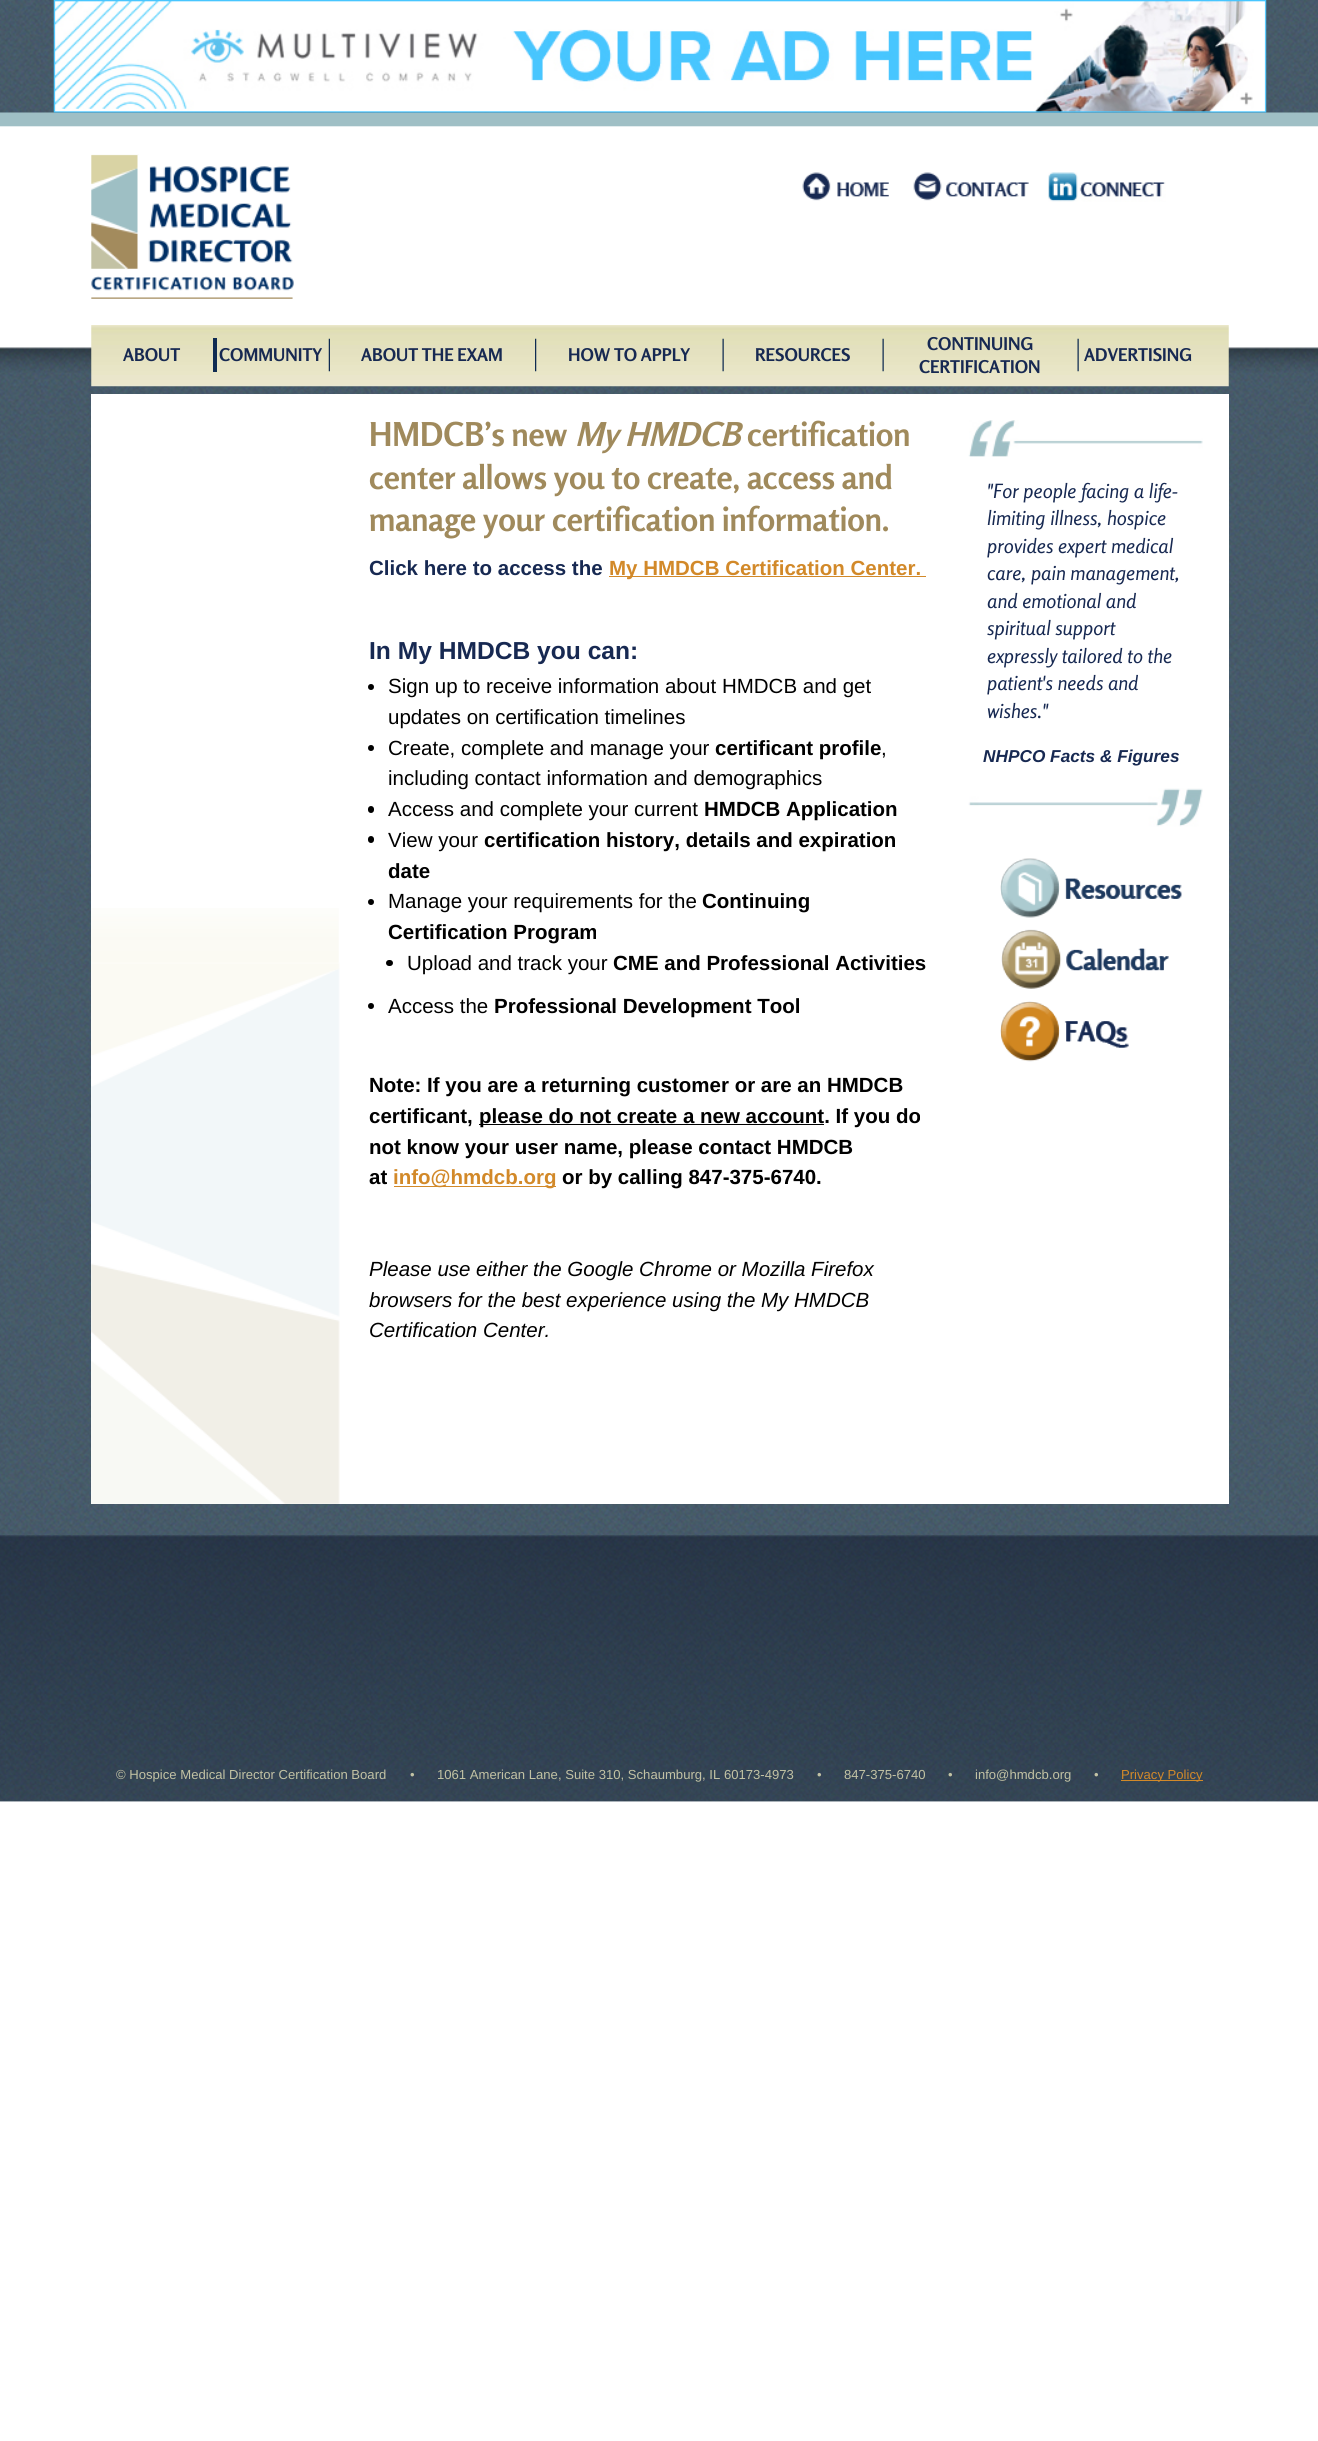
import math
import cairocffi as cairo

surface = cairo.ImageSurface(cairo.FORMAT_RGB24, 1318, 2441)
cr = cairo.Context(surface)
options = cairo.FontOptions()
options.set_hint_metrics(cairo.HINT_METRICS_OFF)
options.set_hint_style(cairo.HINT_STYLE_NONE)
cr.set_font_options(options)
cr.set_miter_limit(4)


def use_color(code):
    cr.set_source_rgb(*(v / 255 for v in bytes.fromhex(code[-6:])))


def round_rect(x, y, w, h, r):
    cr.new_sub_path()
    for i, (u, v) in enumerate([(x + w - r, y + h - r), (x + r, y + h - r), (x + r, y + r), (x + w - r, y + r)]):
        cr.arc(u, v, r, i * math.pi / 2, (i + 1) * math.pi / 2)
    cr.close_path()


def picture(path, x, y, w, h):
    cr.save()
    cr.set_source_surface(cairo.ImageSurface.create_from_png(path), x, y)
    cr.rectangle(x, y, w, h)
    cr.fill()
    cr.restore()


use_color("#ffffff")
cr.paint()
picture("img1.png", 0, 0, 1318, 1802)
picture("img3.png", 0, 112, 1318, 261)
picture("img2.png", 53, 0, 1214, 113)
picture("img4.png", 91, 154, 203, 145)
picture("img5.png", 802, 172, 87, 29)
picture("img6.png", 913, 172, 116, 29)
picture("img7.png", 1048, 172, 118, 30)
picture("img8.png", 91, 325, 1138, 62)
cr.select_font_face("Rosario", cairo.FONT_SLANT_NORMAL, cairo.FONT_WEIGHT_BOLD)
cr.set_font_size(17.5)
use_color("#172952")
cr.move_to(123, 361)
cr.show_text("ABOUT")
use_color("#0f2b52")
cr.rectangle(213, 338, 4, 34)
cr.fill()
use_color("#172952")
cr.move_to(219, 361)
cr.show_text("COMMUNITY")
picture("img9.png", 328, 338, 2, 34)
cr.move_to(361, 361)
cr.show_text("ABOUT THE EXAM")
picture("img10.png", 535, 338, 2, 34)
cr.move_to(568, 361)
cr.show_text("HOW TO APPLY")
picture("img11.png", 722, 338, 2, 34)
cr.move_to(755, 361)
cr.show_text("RESOURCES")
picture("img11.png", 882, 338, 2, 34)
cr.move_to(927, 350)
cr.show_text("CONTINUING")
cr.move_to(919, 373)
cr.show_text("CERTIFICATION")
picture("img11.png", 1077, 338, 2, 34)
cr.move_to(1084, 361)
cr.show_text("ADVERTISING")
use_color("#ffffff")
cr.rectangle(91, 394, 1138, 1110)
cr.fill()
picture("img12.png", 91, 908, 249, 596)
cr.set_font_size(32.75)
use_color("#a08a5c")
cr.move_to(369, 446)
cr.show_text("HMDCB’s new")
cr.select_font_face("Rosario", cairo.FONT_SLANT_ITALIC, cairo.FONT_WEIGHT_BOLD)
cr.move_to(575, 446)
cr.show_text("My HMDCB")
cr.select_font_face("Rosario", cairo.FONT_SLANT_NORMAL, cairo.FONT_WEIGHT_BOLD)
cr.move_to(747, 446)
cr.show_text("certification")
cr.move_to(369, 489)
cr.show_text("center allows you to create, access and")
cr.move_to(369, 531)
cr.show_text("manage your certification information.")
cr.select_font_face("Liberation Sans", cairo.FONT_SLANT_NORMAL, cairo.FONT_WEIGHT_BOLD)
cr.set_font_size(20.5)
use_color("#172952")
cr.move_to(369, 575)
cr.show_text("Click here to access the")
use_color("#d28929")
cr.rectangle(609, 576, 317, 1)
cr.fill()
cr.move_to(609, 575)
cr.show_text("My HMDCB Certification Center.")
cr.set_font_size(24.6)
use_color("#172952")
cr.move_to(369, 659)
cr.show_text("In My HMDCB you can:")
use_color("#000000")
cr.new_path()
cr.arc(371, 687, 3, 0, 2 * math.pi)
cr.fill()
cr.select_font_face("Liberation Sans")
cr.set_font_size(20.5)
cr.move_to(388, 693)
cr.show_text("Sign up to receive information about HMDCB and get")
cr.move_to(388, 724)
cr.show_text("updates on certification timelines")
cr.new_path()
cr.arc(371, 748, 3, 0, 2 * math.pi)
cr.fill()
cr.move_to(388, 755)
cr.show_text("Create, complete and manage your")
cr.select_font_face("Liberation Sans", cairo.FONT_SLANT_NORMAL, cairo.FONT_WEIGHT_BOLD)
cr.move_to(715, 755)
cr.show_text("certificant profile")
cr.select_font_face("Liberation Sans")
cr.move_to(881, 755)
cr.show_text(",")
cr.move_to(388, 785)
cr.show_text("including contact information and demographics")
round_rect(368, 806, 6, 7, 3)
cr.fill()
cr.move_to(388, 816)
cr.show_text("Access and complete your current")
cr.select_font_face("Liberation Sans", cairo.FONT_SLANT_NORMAL, cairo.FONT_WEIGHT_BOLD)
cr.move_to(704, 816)
cr.show_text("HMDCB Application")
round_rect(368, 836, 6, 7, 3)
cr.fill()
cr.select_font_face("Liberation Sans")
cr.move_to(388, 847)
cr.show_text("View your")
cr.select_font_face("Liberation Sans", cairo.FONT_SLANT_NORMAL, cairo.FONT_WEIGHT_BOLD)
cr.move_to(484, 847)
cr.show_text("certification history, details and expiration")
cr.move_to(388, 878)
cr.show_text("date")
cr.new_path()
cr.arc(371, 902, 3, 0, 2 * math.pi)
cr.fill()
cr.select_font_face("Liberation Sans")
cr.move_to(388, 908)
cr.show_text("Manage your requirements for the")
cr.select_font_face("Liberation Sans", cairo.FONT_SLANT_NORMAL, cairo.FONT_WEIGHT_BOLD)
cr.move_to(702, 908)
cr.show_text("Continuing")
cr.move_to(388, 939)
cr.show_text("Certification Program")
round_rect(386, 960, 7, 6, 3)
cr.fill()
cr.select_font_face("Liberation Sans")
cr.move_to(407, 970)
cr.show_text("Upload and track your")
cr.select_font_face("Liberation Sans", cairo.FONT_SLANT_NORMAL, cairo.FONT_WEIGHT_BOLD)
cr.move_to(613, 970)
cr.show_text("CME and Professional Activities")
cr.new_path()
cr.arc(371, 1006, 3, 0, 2 * math.pi)
cr.fill()
cr.select_font_face("Liberation Sans")
cr.move_to(388, 1013)
cr.show_text("Access the")
cr.select_font_face("Liberation Sans", cairo.FONT_SLANT_NORMAL, cairo.FONT_WEIGHT_BOLD)
cr.move_to(494, 1013)
cr.show_text("Professional Development Tool")
cr.move_to(369, 1092)
cr.show_text("Note: If you are a returning customer or are an HMDCB")
cr.move_to(369, 1123)
cr.show_text("certificant,")
cr.rectangle(479, 1124, 345, 1)
cr.fill()
cr.move_to(479, 1123)
cr.show_text("please do not create a new account. If you do")
cr.move_to(369, 1154)
cr.show_text("not know your user name, please contact HMDCB")
cr.move_to(369, 1184)
cr.show_text("at")
use_color("#d28929")
cr.rectangle(394, 1186, 162, 1)
cr.fill()
cr.move_to(393, 1184)
cr.show_text("info@hmdcb.org")
use_color("#000000")
cr.move_to(562, 1184)
cr.show_text("or by calling 847-375-6740.")
cr.select_font_face("Liberation Sans", cairo.FONT_SLANT_ITALIC)
cr.move_to(369, 1276)
cr.show_text("Please use either the Google Chrome or Mozilla Firefox")
cr.move_to(369, 1307)
cr.show_text("browsers for the best experience using the My HMDCB")
cr.move_to(369, 1337)
cr.show_text("Certification Center.")
picture("img13.png", 968, 420, 235, 37)
cr.select_font_face("Rosario", cairo.FONT_SLANT_ITALIC)
cr.set_font_size(19.75)
use_color("#172952")
cr.move_to(987, 498)
cr.show_text("\"For people facing a life-")
cr.move_to(987, 525)
cr.show_text("limiting illness, hospice")
cr.move_to(987, 553)
cr.show_text("provides expert medical")
cr.move_to(987, 580)
cr.show_text("care, pain management,")
cr.move_to(987, 608)
cr.show_text("and emotional and")
cr.move_to(987, 635)
cr.show_text("spiritual support")
cr.move_to(987, 663)
cr.show_text("expressly tailored to the")
cr.move_to(987, 690)
cr.show_text("patient's needs and")
cr.move_to(987, 718)
cr.show_text("wishes.\"")
cr.select_font_face("Liberation Sans", cairo.FONT_SLANT_ITALIC, cairo.FONT_WEIGHT_BOLD)
cr.set_font_size(17.25)
cr.move_to(983, 762)
cr.show_text("NHPCO Facts & Figures")
picture("img14.png", 968, 788, 235, 39)
picture("img15.png", 1000, 858, 182, 60)
picture("img16.png", 1001, 859, 181, 59)
picture("img17.png", 1001, 929, 168, 60)
picture("img18.png", 1002, 930, 167, 59)
picture("img19.png", 1000, 1001, 129, 60)
picture("img20.png", 1001, 1002, 128, 60)
picture("img21.png", 0, 1535, 1318, 267)
cr.select_font_face("Liberation Sans")
cr.set_font_size(13.1)
use_color("#c2c2a4")
cr.move_to(116, 1779)
cr.show_text("© Hospice Medical Director Certification Board")
cr.move_to(410, 1779)
cr.show_text("•")
cr.move_to(437, 1779)
cr.show_text("1061 American Lane, Suite 310, Schaumburg, IL 60173-4973")
cr.move_to(817, 1779)
cr.show_text("•")
cr.move_to(844, 1779)
cr.show_text("847-375-6740")
cr.move_to(948, 1779)
cr.show_text("•")
cr.move_to(975, 1779)
cr.show_text("info@hmdcb.org")
cr.move_to(1094, 1779)
cr.show_text("•")
use_color("#d28929")
cr.rectangle(1121, 1780, 82, 1)
cr.fill()
cr.move_to(1121, 1779)
cr.show_text("Privacy Policy")
surface.write_to_png("result.png")
